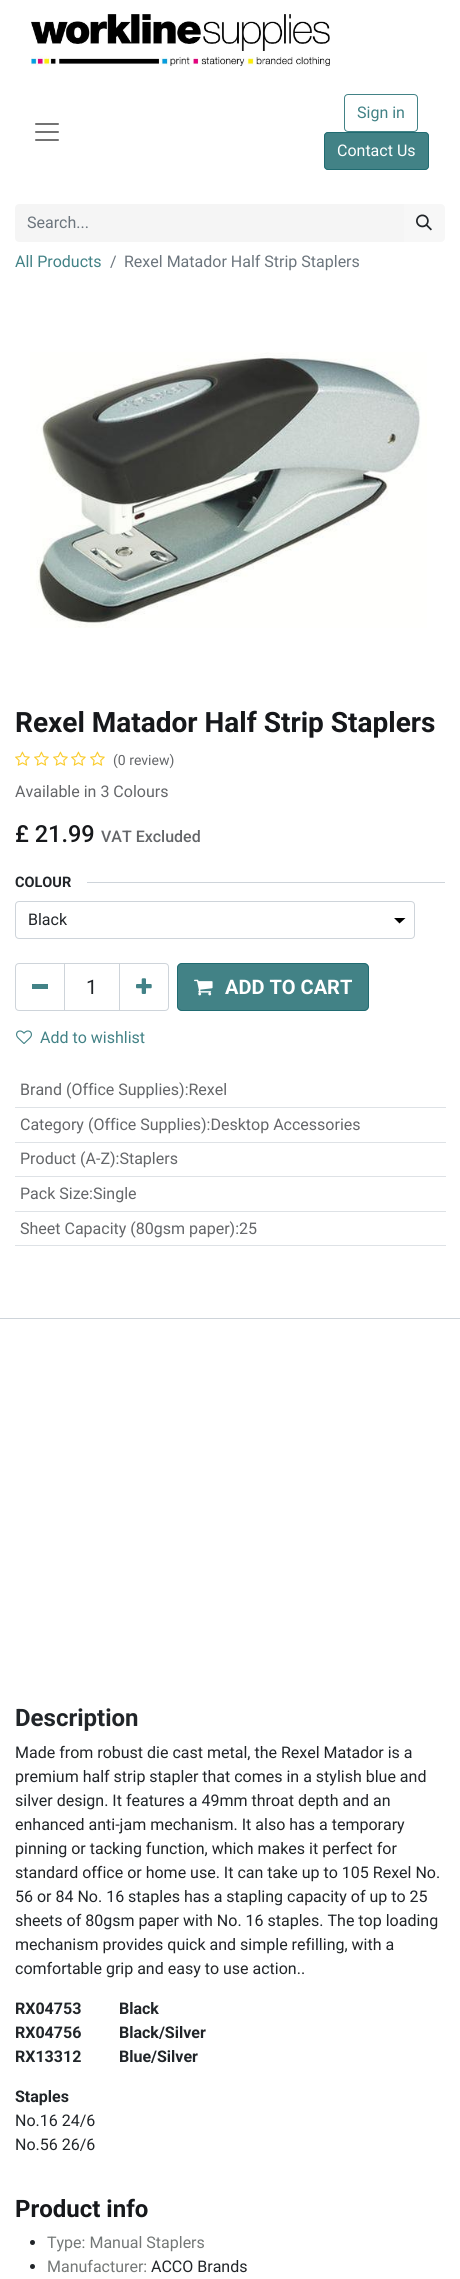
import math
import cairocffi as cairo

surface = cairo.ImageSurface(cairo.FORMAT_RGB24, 460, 2279)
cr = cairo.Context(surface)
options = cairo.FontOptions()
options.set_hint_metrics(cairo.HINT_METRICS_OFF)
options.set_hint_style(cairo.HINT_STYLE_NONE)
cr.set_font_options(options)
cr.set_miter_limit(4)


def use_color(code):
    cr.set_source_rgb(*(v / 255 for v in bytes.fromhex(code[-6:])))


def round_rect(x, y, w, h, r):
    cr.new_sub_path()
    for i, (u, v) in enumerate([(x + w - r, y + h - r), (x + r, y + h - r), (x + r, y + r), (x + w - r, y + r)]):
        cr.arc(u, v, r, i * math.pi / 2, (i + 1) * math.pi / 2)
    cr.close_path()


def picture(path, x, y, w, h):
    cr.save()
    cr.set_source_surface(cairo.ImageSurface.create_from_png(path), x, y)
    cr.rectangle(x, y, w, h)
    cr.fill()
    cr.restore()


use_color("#ffffff")
cr.paint()
picture("img1.png", 31, 14, 299, 52)
picture("img2.png", 35, 123, 24, 18)
round_rect(344.5, 94.5, 73, 37, 3.5)
use_color("#428286")
cr.set_line_width(1)
cr.stroke()
cr.select_font_face("Roboto")
cr.set_font_size(16)
cr.move_to(357, 118)
cr.show_text("Sign in")
round_rect(324, 132, 105, 38, 4)
cr.fill()
round_rect(324.5, 132.5, 104, 37, 3.5)
cr.set_source_rgba(0.098, 0.404, 0.424, 0.82)
cr.stroke()
use_color("#ffffff")
cr.move_to(337, 156)
cr.show_text("Contact Us")
use_color("#f5f5f5")
cr.new_path()
cr.move_to(19, 204)
cr.line_to(404, 204)
cr.line_to(404, 242)
cr.line_to(19, 242)
cr.curve_to(17, 242, 15, 240, 15, 238)
cr.line_to(15, 208)
cr.curve_to(15, 206, 17, 204, 19, 204)
cr.close_path()
cr.fill()
use_color("#6c757d")
cr.move_to(27, 228)
cr.show_text("Search...")
cr.set_source_rgba(0.961, 0.961, 0.961, 0.82)
cr.new_path()
cr.move_to(403, 204)
cr.line_to(441, 204)
cr.curve_to(443, 204, 445, 206, 445, 208)
cr.line_to(445, 238)
cr.curve_to(445, 240, 443, 242, 441, 242)
cr.line_to(403, 242)
cr.close_path()
cr.fill()
picture("img3.png", 416, 214, 16, 17)
use_color("#428286")
cr.move_to(15, 267)
cr.show_text("All Products")
use_color("#6c757d")
cr.move_to(110, 267)
cr.show_text("/")
cr.move_to(124, 267)
cr.show_text("Rexel Matador Half Strip Staplers")
picture("img4.png", 30, 352, 397, 276)
cr.select_font_face("Roboto", cairo.FONT_SLANT_NORMAL, cairo.FONT_WEIGHT_BOLD)
cr.set_font_size(28)
use_color("#16181b")
cr.move_to(15, 732)
cr.show_text("Rexel Matador Half Strip Staplers")
picture("img5.png", 15, 751, 15, 15)
picture("img5.png", 34, 751, 15, 15)
picture("img5.png", 53, 751, 15, 15)
picture("img5.png", 71, 751, 15, 15)
picture("img5.png", 90, 751, 15, 15)
cr.select_font_face("Roboto")
cr.set_font_size(14)
use_color("#646669")
cr.move_to(113, 765)
cr.show_text("(0 review)")
cr.set_font_size(16)
cr.move_to(15, 797)
cr.show_text("Available in 3 Colours")
cr.select_font_face("Roboto Medium")
cr.set_font_size(23.5)
use_color("#16181b")
cr.move_to(15, 842)
cr.show_text("£ 21.99")
cr.set_font_size(16)
use_color("#646669")
cr.move_to(101, 842)
cr.show_text("VAT Excluded")
cr.select_font_face("Roboto", cairo.FONT_SLANT_NORMAL, cairo.FONT_WEIGHT_BOLD)
cr.set_font_size(14.5)
use_color("#212529")
cr.move_to(15, 887)
cr.show_text("COLOUR")
use_color("#ced4da")
cr.rectangle(87, 882, 358, 1)
cr.fill()
use_color("#000000")
cr.new_path()
cr.move_to(394, 918)
cr.line_to(405.5, 918)
cr.line_to(399.5, 923.5)
cr.close_path()
cr.fill()
round_rect(15.5, 901.5, 399, 37, 3.5)
use_color("#ced4da")
cr.stroke()
cr.select_font_face("Roboto")
cr.set_font_size(16)
use_color("#212529")
cr.move_to(28, 925)
cr.show_text("Black")
cr.rectangle(64.5, 963.5, 55, 47)
use_color("#ced4da")
cr.stroke()
cr.new_path()
cr.move_to(19, 963.5)
cr.line_to(64.5, 963.5)
cr.line_to(64.5, 1010.5)
cr.line_to(19, 1010.5)
cr.curve_to(17, 1010.5, 15.5, 1009, 15.5, 1007)
cr.line_to(15.5, 967)
cr.curve_to(15.5, 965, 17, 963.5, 19, 963.5)
cr.close_path()
cr.stroke()
use_color("#428286")
cr.rectangle(32, 984, 16, 5)
cr.fill()
cr.set_font_size(20)
use_color("#212529")
cr.move_to(86, 994)
cr.show_text("1")
cr.new_path()
cr.move_to(119.5, 963.5)
cr.line_to(165, 963.5)
cr.curve_to(167, 963.5, 168.5, 965, 168.5, 967)
cr.line_to(168.5, 1007)
cr.curve_to(168.5, 1009, 167, 1010.5, 165, 1010.5)
cr.line_to(119.5, 1010.5)
cr.close_path()
use_color("#ced4da")
cr.stroke()
picture("img6.png", 136, 978, 16, 16)
use_color("#428286")
round_rect(177, 963, 192, 48, 5)
cr.fill()
round_rect(177.5, 963.5, 191, 47, 4.5)
cr.set_source_rgba(0.098, 0.404, 0.424, 0.82)
cr.stroke()
picture("img7.png", 194, 979, 19, 17)
cr.select_font_face("Roboto", cairo.FONT_SLANT_NORMAL, cairo.FONT_WEIGHT_BOLD)
use_color("#ffffff")
cr.move_to(225, 994)
cr.show_text("ADD TO CART")
picture("img8.png", 16, 1030, 16, 14)
cr.select_font_face("Roboto")
cr.set_font_size(16)
use_color("#428286")
cr.move_to(40, 1043)
cr.show_text("Add to wishlist")
use_color("#dee2e6")
cr.rectangle(15, 1107, 431, 1)
cr.fill()
use_color("#646669")
cr.move_to(20, 1095)
cr.show_text("Brand (Office Supplies):Rexel")
use_color("#dee2e6")
cr.rectangle(15, 1142, 431, 1)
cr.fill()
use_color("#646669")
cr.move_to(20, 1130)
cr.show_text("Category (Office Supplies):Desktop Accessories")
use_color("#dee2e6")
cr.rectangle(15, 1176, 431, 1)
cr.fill()
use_color("#646669")
cr.move_to(20, 1164)
cr.show_text("Product (A-Z):Staplers")
use_color("#dee2e6")
cr.rectangle(15, 1211, 431, 1)
cr.fill()
use_color("#646669")
cr.move_to(20, 1199)
cr.show_text("Pack Size:Single")
use_color("#dee2e6")
cr.rectangle(15, 1245, 431, 1)
cr.fill()
use_color("#646669")
cr.move_to(20, 1234)
cr.show_text("Sheet Capacity (80gsm paper):25")
use_color("#ced4da")
cr.rectangle(0, 1318, 460, 1)
cr.fill()
cr.select_font_face("Roboto", cairo.FONT_SLANT_NORMAL, cairo.FONT_WEIGHT_BOLD)
cr.set_font_size(24)
use_color("#212529")
cr.move_to(15, 1726)
cr.show_text("Description")
cr.select_font_face("Roboto")
cr.set_font_size(16)
cr.move_to(15, 1758)
cr.show_text("Made from robust die cast metal, the Rexel Matador is a")
cr.move_to(15, 1782)
cr.show_text("premium half strip stapler that comes in a stylish blue and")
cr.move_to(15, 1806)
cr.show_text("silver design. It features a 49mm throat depth and an")
cr.move_to(15, 1830)
cr.show_text("enhanced anti-jam mechanism. It also has a temporary")
cr.move_to(15, 1854)
cr.show_text("pinning or tacking function, which makes it perfect for")
cr.move_to(15, 1878)
cr.show_text("standard office or home use. It can take up to 105 Rexel No.")
cr.move_to(15, 1902)
cr.show_text("56 or 84 No. 16 staples has a stapling capacity of up to 25")
cr.move_to(15, 1926)
cr.show_text("sheets of 80gsm paper with No. 16 staples. The top loading")
cr.move_to(15, 1950)
cr.show_text("mechanism provides quick and simple refilling, with a")
cr.move_to(15, 1974)
cr.show_text("comfortable grip and easy to use action..")
cr.select_font_face("Roboto", cairo.FONT_SLANT_NORMAL, cairo.FONT_WEIGHT_BOLD)
cr.move_to(15, 2014)
cr.show_text("RX04753")
cr.move_to(119, 2014)
cr.show_text("Black")
cr.move_to(15, 2038)
cr.show_text("RX04756")
cr.move_to(119, 2038)
cr.show_text("Black/Silver")
cr.move_to(15, 2062)
cr.show_text("RX13312")
cr.move_to(119, 2062)
cr.show_text("Blue/Silver")
cr.move_to(15, 2102)
cr.show_text("Staples")
cr.select_font_face("Roboto")
cr.move_to(15, 2126)
cr.show_text("No.16 24/6")
cr.move_to(15, 2150)
cr.show_text("No.56 26/6")
cr.select_font_face("Roboto", cairo.FONT_SLANT_NORMAL, cairo.FONT_WEIGHT_BOLD)
cr.set_font_size(24)
use_color("#16181b")
cr.move_to(15, 2217)
cr.show_text("Product info")
use_color("#212529")
cr.new_path()
cr.arc(32.5, 2242.5, 2.5, 0, 2 * math.pi)
cr.fill()
cr.select_font_face("Roboto")
cr.set_font_size(16)
use_color("#747877")
cr.move_to(47, 2248)
cr.show_text("Type: Manual Staplers")
use_color("#212529")
cr.new_path()
cr.arc(32.5, 2266.5, 2.5, 0, 2 * math.pi)
cr.fill()
use_color("#747877")
cr.move_to(47, 2272)
cr.show_text("Manufacturer:")
use_color("#212529")
cr.move_to(151, 2272)
cr.show_text("ACCO Brands")
surface.write_to_png("result.png")
